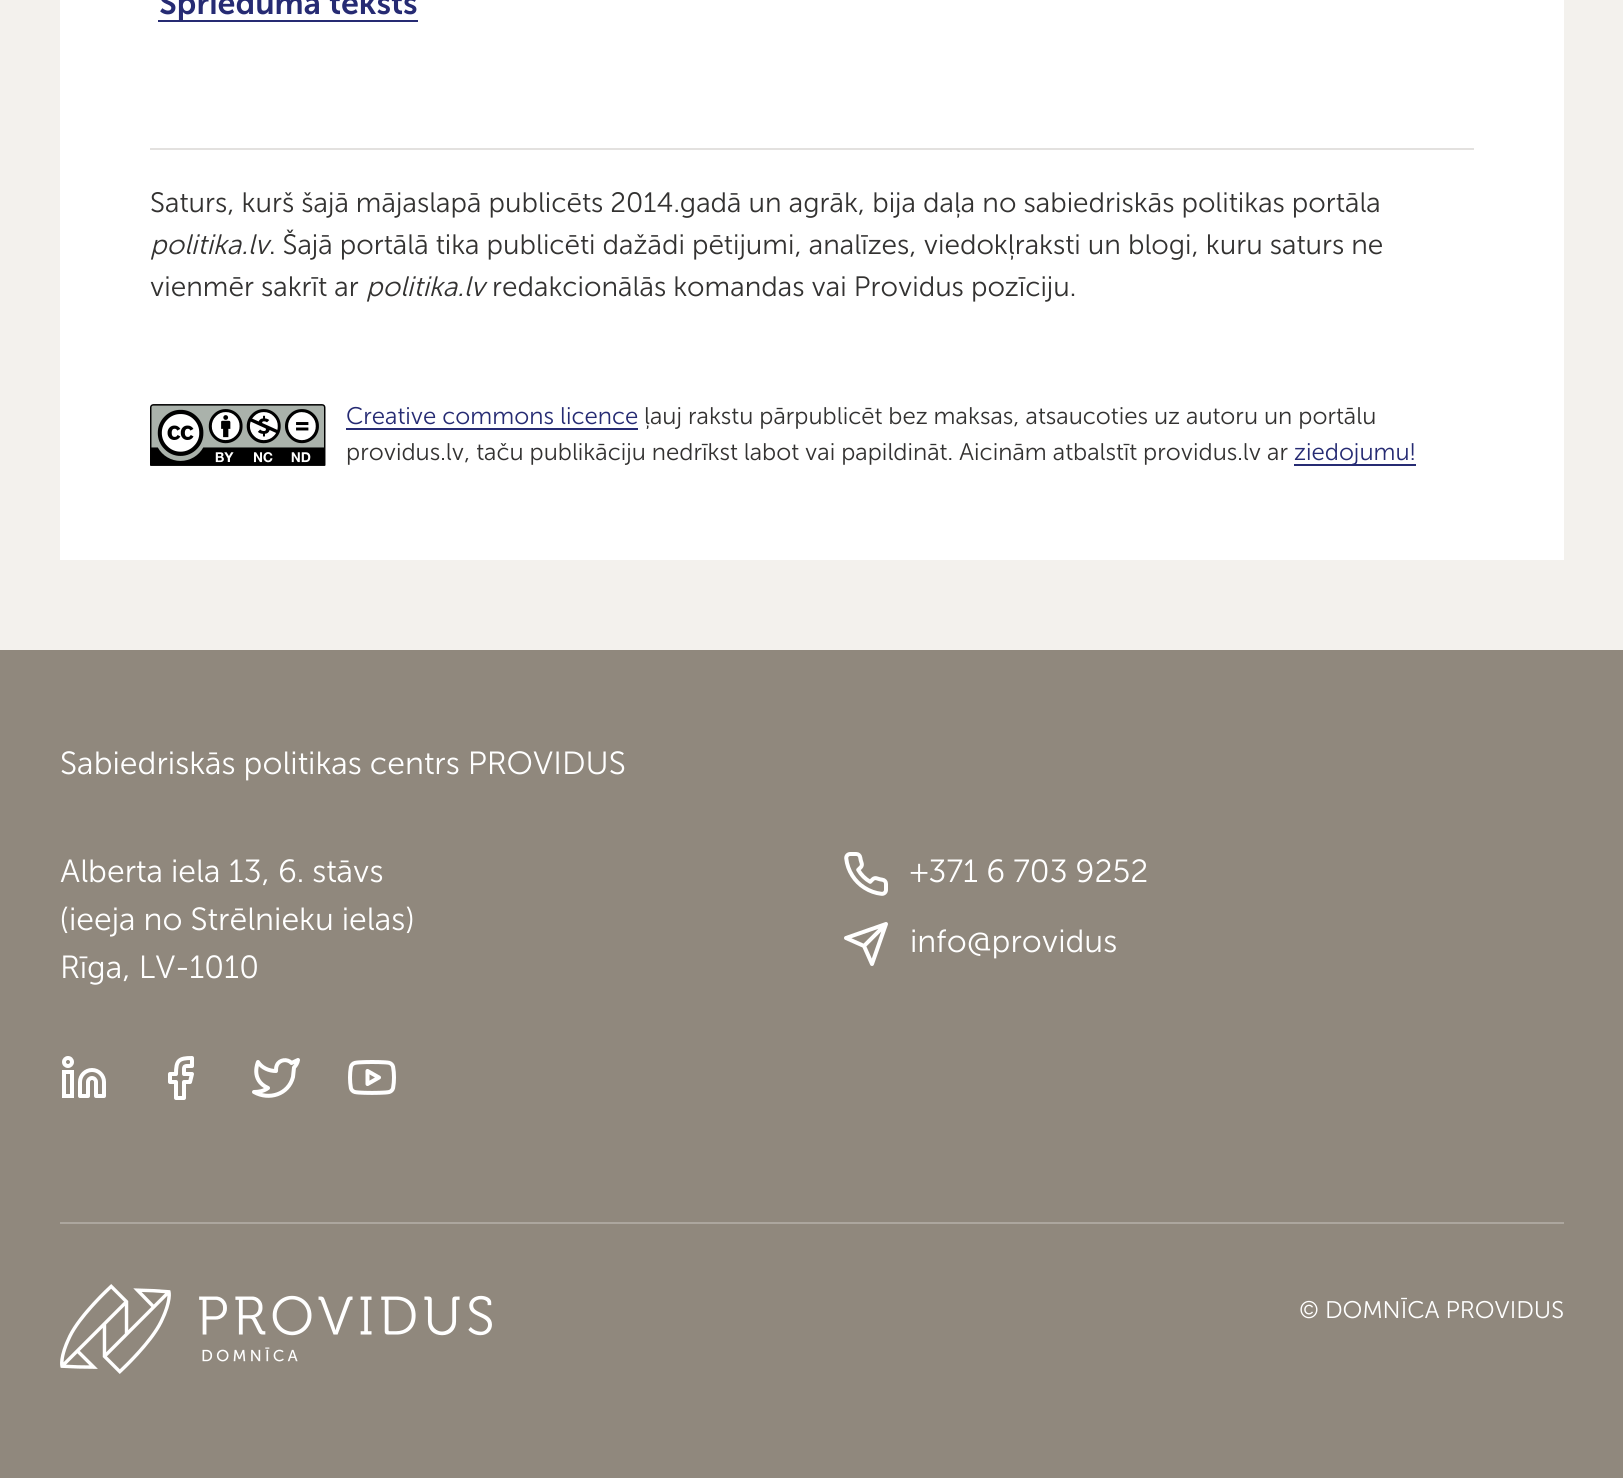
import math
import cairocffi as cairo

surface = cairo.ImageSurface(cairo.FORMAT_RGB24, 1623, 1478)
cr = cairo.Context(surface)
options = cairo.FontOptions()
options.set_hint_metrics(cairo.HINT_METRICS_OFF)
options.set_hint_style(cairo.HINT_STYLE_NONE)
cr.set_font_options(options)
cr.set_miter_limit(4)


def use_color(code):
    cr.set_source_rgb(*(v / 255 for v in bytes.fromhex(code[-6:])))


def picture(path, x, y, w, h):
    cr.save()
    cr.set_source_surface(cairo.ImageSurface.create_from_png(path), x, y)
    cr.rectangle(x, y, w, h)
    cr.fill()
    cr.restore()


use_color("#f3f1ed")
cr.paint()
use_color("#ffffff")
cr.rectangle(60, 0, 1504, 560)
cr.fill()
use_color("#262b73")
cr.rectangle(158, 20, 260, 2)
cr.fill()
cr.select_font_face("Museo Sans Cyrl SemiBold")
cr.set_font_size(32)
cr.move_to(159, 14)
cr.show_text("Sprieduma teksts")
use_color("#e3e1df")
cr.rectangle(150, 148, 1324, 2)
cr.fill()
cr.select_font_face("Museo Sans Cyrl Light")
cr.set_font_size(28)
use_color("#333231")
cr.move_to(150, 212)
cr.show_text("Saturs, kurš šajā mājaslapā publicēts 2014.gadā un agrāk, bija daļa no sabiedriskās politikas portāla")
cr.select_font_face("Museo Sans Cyrl Light", cairo.FONT_SLANT_ITALIC)
cr.move_to(150, 254)
cr.show_text("politika.lv")
cr.select_font_face("Museo Sans Cyrl Light")
cr.move_to(269, 254)
cr.show_text(". Šajā portālā tika publicēti dažādi pētijumi, analīzes, viedokļraksti un blogi, kuru saturs ne")
cr.move_to(150, 296)
cr.show_text("vienmēr sakrīt ar")
cr.select_font_face("Museo Sans Cyrl Light", cairo.FONT_SLANT_ITALIC)
cr.move_to(366, 296)
cr.show_text("politika.lv")
cr.select_font_face("Museo Sans Cyrl Light")
cr.move_to(492, 296)
cr.show_text("redakcionālās komandas vai Providus pozīciju.")
picture("img1.png", 150, 404, 176, 62)
cr.set_font_size(24)
use_color("#262b73")
cr.move_to(346, 424)
cr.show_text("Creative commons licence")
cr.rectangle(346, 428, 292, 2)
cr.fill()
use_color("#333231")
cr.move_to(644, 424)
cr.show_text("ļauj rakstu pārpublicēt bez maksas, atsaucoties uz autoru un portālu")
cr.move_to(346, 460)
cr.show_text("providus.lv, taču publikāciju nedrīkst labot vai papildināt. Aicinām atbalstīt providus.lv ar")
use_color("#262b73")
cr.rectangle(1294, 464, 122, 2)
cr.fill()
cr.move_to(1294, 460)
cr.show_text("ziedojumu!")
use_color("#90887d")
cr.rectangle(0, 650, 1623, 828)
cr.fill()
cr.set_font_size(32)
use_color("#ffffff")
cr.move_to(60, 774)
cr.show_text("Sabiedriskās politikas centrs PROVIDUS")
cr.move_to(60, 882)
cr.show_text("Alberta iela 13, 6. stāvs")
cr.move_to(60, 930)
cr.show_text("(ieeja no Strēlnieku ielas)")
cr.move_to(60, 978)
cr.show_text("Rīga, LV-1010")
picture("img2.png", 844, 852, 44, 44)
cr.move_to(910, 882)
cr.show_text("+371 6 703 9252")
cr.new_path()
cr.move_to(886, 924)
cr.line_to(864, 946)
cr.move_to(886, 924)
cr.line_to(872, 964)
cr.line_to(864, 946)
cr.line_to(846, 938)
cr.close_path()
cr.set_line_width(4)
cr.set_line_cap(cairo.LINE_CAP_ROUND)
cr.set_line_join(cairo.LINE_JOIN_ROUND)
cr.stroke()
cr.move_to(910, 952)
cr.show_text("info@providus")
picture("img3.png", 62, 1056, 44, 42)
cr.new_path()
cr.move_to(192, 1058)
cr.curve_to(178.5, 1058, 176, 1060.5, 176, 1074)
cr.line_to(170, 1074)
cr.line_to(170, 1082)
cr.line_to(176, 1082)
cr.line_to(176, 1098)
cr.line_to(184, 1098)
cr.line_to(184, 1082)
cr.line_to(190, 1082)
cr.line_to(192, 1074)
cr.line_to(184, 1074)
cr.curve_to(184, 1065, 183, 1066, 192, 1066)
cr.close_path()
cr.stroke()
cr.new_path()
cr.move_to(298, 1060)
cr.line_to(291.5, 1063)
cr.curve_to(287.5, 1058.5, 279.5, 1059.5, 277, 1065)
cr.curve_to(276, 1067, 276, 1069, 276, 1071)
cr.curve_to(269, 1071, 262, 1068, 258, 1062)
cr.curve_to(258, 1062, 250, 1080, 268, 1088)
cr.curve_to(264, 1091, 259, 1092, 254, 1092)
cr.curve_to(269, 1100.5, 288.5, 1094.5, 293, 1077)
cr.line_to(294, 1067.5)
cr.curve_to(296, 1065.5, 297.5, 1063, 298, 1060)
cr.close_path()
cr.stroke()
picture("img4.png", 348, 1060, 48, 35)
use_color("#aca69e")
cr.rectangle(60, 1222, 1504, 2)
cr.fill()
picture("img5.png", 60, 1284, 432, 90)
cr.set_font_size(24)
use_color("#ffffff")
cr.move_to(1299, 1318)
cr.show_text("© DOMNĪCA PROVIDUS")
surface.write_to_png("result.png")
